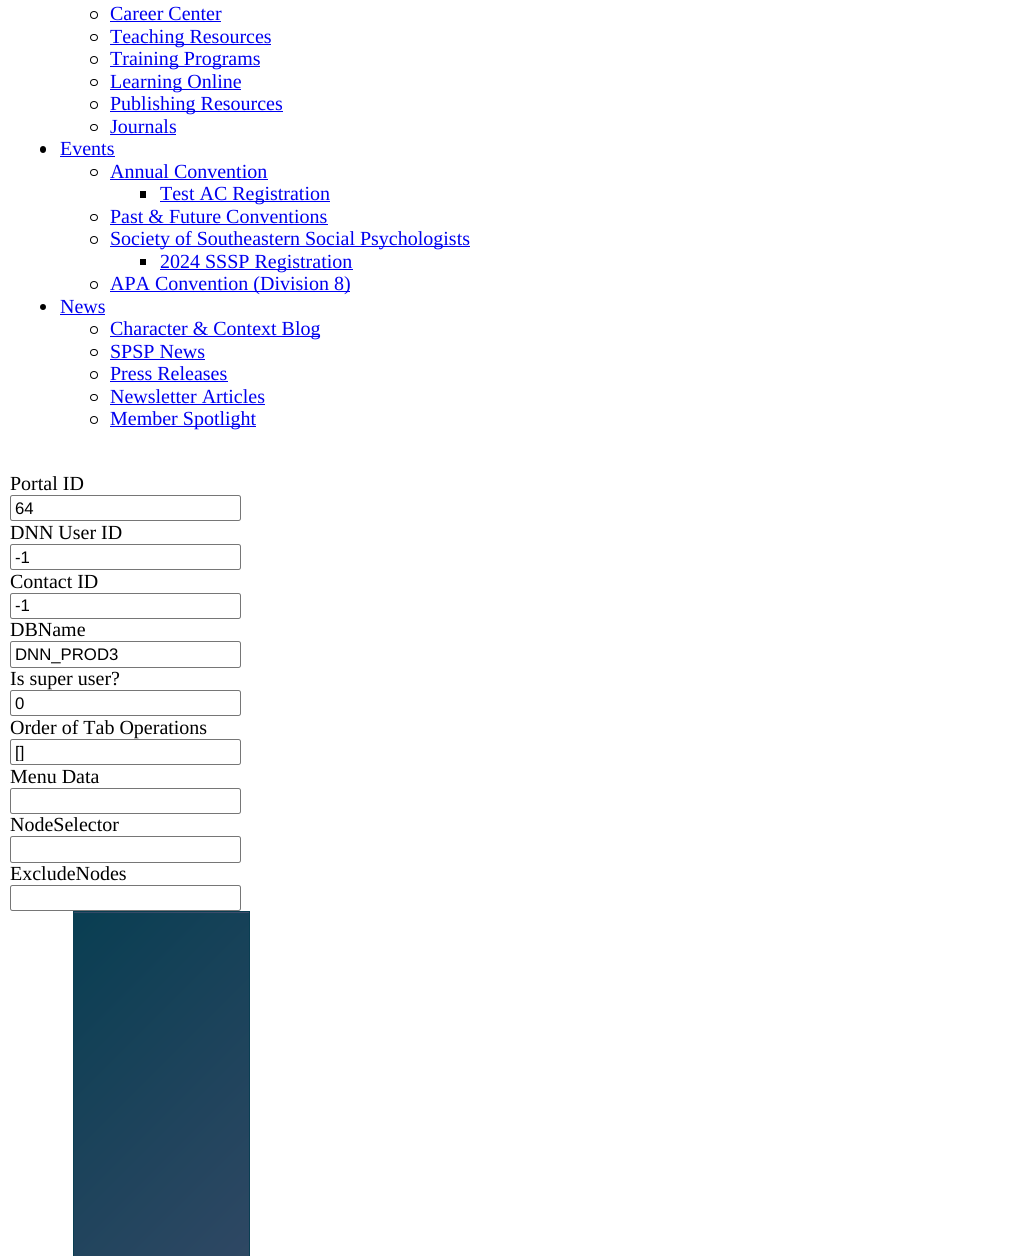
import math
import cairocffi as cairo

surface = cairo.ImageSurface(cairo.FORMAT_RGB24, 1013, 1256)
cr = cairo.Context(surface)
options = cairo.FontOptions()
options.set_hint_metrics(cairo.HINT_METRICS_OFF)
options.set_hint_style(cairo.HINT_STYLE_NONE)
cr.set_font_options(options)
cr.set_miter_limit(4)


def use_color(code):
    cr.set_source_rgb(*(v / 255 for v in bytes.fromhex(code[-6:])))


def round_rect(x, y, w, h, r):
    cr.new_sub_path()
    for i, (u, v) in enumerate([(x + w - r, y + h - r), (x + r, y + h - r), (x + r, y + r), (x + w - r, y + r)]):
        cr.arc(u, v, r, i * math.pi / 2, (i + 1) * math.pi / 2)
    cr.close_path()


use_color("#ffffff")
cr.paint()
cr.arc(94, 15, 3.5, 0, 2 * math.pi)
use_color("#000000")
cr.set_line_width(1)
cr.stroke()
cr.select_font_face("Liberation Serif")
cr.set_font_size(20)
use_color("#0000ee")
cr.move_to(110, 20)
cr.show_text("Career Center")
cr.rectangle(110, 21, 111, 1)
cr.fill()
round_rect(90.5, 34.5, 7, 6, 3)
use_color("#000000")
cr.stroke()
use_color("#0000ee")
cr.rectangle(110, 44, 161, 1)
cr.fill()
cr.move_to(110, 43)
cr.show_text("Teaching Resources")
cr.new_path()
cr.arc(94, 60, 3.5, 0, 2 * math.pi)
use_color("#000000")
cr.stroke()
use_color("#0000ee")
cr.rectangle(110, 66, 150, 1)
cr.fill()
cr.move_to(110, 65)
cr.show_text("Training Programs")
round_rect(90.5, 79.5, 7, 6, 3)
use_color("#000000")
cr.stroke()
use_color("#0000ee")
cr.rectangle(110, 89, 131, 1)
cr.fill()
cr.move_to(110, 88)
cr.show_text("Learning Online")
cr.new_path()
cr.arc(94, 105, 3.5, 0, 2 * math.pi)
use_color("#000000")
cr.stroke()
use_color("#0000ee")
cr.rectangle(110, 111, 173, 1)
cr.fill()
cr.move_to(110, 110)
cr.show_text("Publishing Resources")
round_rect(90.5, 124.5, 7, 6, 3)
use_color("#000000")
cr.stroke()
use_color("#0000ee")
cr.move_to(110, 133)
cr.show_text("Journals")
cr.rectangle(110, 134, 66, 1)
cr.fill()
use_color("#000000")
round_rect(40, 146, 6, 7, 3)
cr.fill()
use_color("#0000ee")
cr.move_to(60, 155)
cr.show_text("Events")
cr.rectangle(60, 156, 55, 1)
cr.fill()
round_rect(90.5, 169.5, 7, 6, 3)
use_color("#000000")
cr.stroke()
use_color("#0000ee")
cr.move_to(110, 178)
cr.show_text("Annual Convention")
cr.rectangle(110, 179, 158, 1)
cr.fill()
use_color("#000000")
cr.rectangle(140, 191, 6, 7)
cr.fill()
use_color("#0000ee")
cr.rectangle(160, 201, 170, 1)
cr.fill()
cr.move_to(160, 200)
cr.show_text("Test AC Registration")
round_rect(90.5, 214.5, 7, 6, 3)
use_color("#000000")
cr.stroke()
use_color("#0000ee")
cr.move_to(110, 223)
cr.show_text("Past & Future Conventions")
cr.rectangle(110, 224, 218, 1)
cr.fill()
cr.arc(94, 240, 3.5, 0, 2 * math.pi)
use_color("#000000")
cr.stroke()
use_color("#0000ee")
cr.rectangle(110, 246, 360, 1)
cr.fill()
cr.move_to(110, 245)
cr.show_text("Society of Southeastern Social Psychologists")
use_color("#000000")
cr.rectangle(140, 259, 6, 6)
cr.fill()
use_color("#0000ee")
cr.rectangle(160, 269, 193, 1)
cr.fill()
cr.move_to(160, 268)
cr.show_text("2024 SSSP Registration")
cr.new_path()
cr.arc(94, 285, 3.5, 0, 2 * math.pi)
use_color("#000000")
cr.stroke()
use_color("#0000ee")
cr.rectangle(110, 291, 240, 1)
cr.fill()
cr.move_to(110, 290)
cr.show_text("APA Convention (Division 8)")
use_color("#000000")
cr.new_path()
cr.arc(43, 307, 3, 0, 2 * math.pi)
cr.fill()
use_color("#0000ee")
cr.move_to(60, 313)
cr.show_text("News")
cr.rectangle(60, 314, 45, 1)
cr.fill()
cr.arc(94, 330, 3.5, 0, 2 * math.pi)
use_color("#000000")
cr.stroke()
use_color("#0000ee")
cr.rectangle(110, 336, 210, 1)
cr.fill()
cr.move_to(110, 335)
cr.show_text("Character & Context Blog")
round_rect(90.5, 349.5, 7, 6, 3)
use_color("#000000")
cr.stroke()
use_color("#0000ee")
cr.move_to(110, 358)
cr.show_text("SPSP News")
cr.rectangle(110, 359, 95, 1)
cr.fill()
cr.arc(94, 375, 3.5, 0, 2 * math.pi)
use_color("#000000")
cr.stroke()
use_color("#0000ee")
cr.move_to(110, 380)
cr.show_text("Press Releases")
cr.rectangle(110, 381, 118, 1)
cr.fill()
round_rect(90.5, 394.5, 7, 6, 3)
use_color("#000000")
cr.stroke()
use_color("#0000ee")
cr.move_to(110, 403)
cr.show_text("Newsletter Articles")
cr.rectangle(110, 404, 155, 1)
cr.fill()
cr.arc(94, 420, 3.5, 0, 2 * math.pi)
use_color("#000000")
cr.stroke()
use_color("#0000ee")
cr.rectangle(110, 426, 146, 1)
cr.fill()
cr.move_to(110, 425)
cr.show_text("Member Spotlight")
use_color("#000000")
cr.move_to(10, 490)
cr.show_text("Portal ID")
round_rect(10.5, 495.5, 230, 25, 2)
use_color("#767676")
cr.stroke()
cr.select_font_face("Liberation Sans")
cr.set_font_size(16.75)
use_color("#000000")
cr.move_to(15, 514)
cr.show_text("64")
cr.select_font_face("Liberation Serif")
cr.set_font_size(20)
cr.move_to(10, 539)
cr.show_text("DNN User ID")
round_rect(10.5, 544.5, 230, 25, 2)
use_color("#767676")
cr.stroke()
cr.select_font_face("Liberation Sans")
cr.set_font_size(16.75)
use_color("#000000")
cr.move_to(15, 563)
cr.show_text("-1")
cr.select_font_face("Liberation Serif")
cr.set_font_size(20)
cr.move_to(10, 588)
cr.show_text("Contact ID")
round_rect(10.5, 593.5, 230, 25, 2)
use_color("#767676")
cr.stroke()
cr.select_font_face("Liberation Sans")
cr.set_font_size(16.75)
use_color("#000000")
cr.move_to(15, 611)
cr.show_text("-1")
cr.select_font_face("Liberation Serif")
cr.set_font_size(20)
cr.move_to(10, 636)
cr.show_text("DBName")
round_rect(10.5, 641.5, 230, 26, 2)
use_color("#767676")
cr.stroke()
cr.select_font_face("Liberation Sans")
cr.set_font_size(16.75)
use_color("#000000")
cr.move_to(15, 660)
cr.show_text("DNN_PROD3")
cr.select_font_face("Liberation Serif")
cr.set_font_size(20)
cr.move_to(10, 685)
cr.show_text("Is super user?")
round_rect(10.5, 690.5, 230, 25, 2)
use_color("#767676")
cr.stroke()
cr.select_font_face("Liberation Sans")
cr.set_font_size(16.75)
use_color("#000000")
cr.move_to(15, 709)
cr.show_text("0")
cr.select_font_face("Liberation Serif")
cr.set_font_size(20)
cr.move_to(10, 734)
cr.show_text("Order of Tab Operations")
round_rect(10.5, 739.5, 230, 25, 2)
use_color("#767676")
cr.stroke()
cr.save()
cr.rectangle(15, 743, 221, 18)
cr.clip()
cr.select_font_face("Liberation Sans")
cr.set_font_size(16.75)
use_color("#000000")
cr.move_to(15, 758)
cr.show_text("[]")
cr.restore()
use_color("#000000")
cr.move_to(10, 783)
cr.show_text("Menu Data")
round_rect(10.5, 788.5, 230, 25, 2)
use_color("#767676")
cr.stroke()
use_color("#000000")
cr.move_to(10, 831)
cr.show_text("NodeSelector")
round_rect(10.5, 836.5, 230, 26, 2)
use_color("#767676")
cr.stroke()
use_color("#000000")
cr.move_to(10, 880)
cr.show_text("ExcludeNodes")
round_rect(10.5, 885.5, 230, 25, 2)
use_color("#767676")
cr.stroke()
gradient = cairo.LinearGradient(-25, 442, 347, 814)
gradient.add_color_stop_rgba(0, 0.035, 0.243, 0.322, 1)
gradient.add_color_stop_rgba(1, 0.247, 0.298, 0.42, 1)
cr.set_source(gradient)
cr.rectangle(74, 912, 175, 1)
cr.fill()
gradient = cairo.LinearGradient(-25, 1011, 347, 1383)
gradient.add_color_stop_rgba(0, 0.035, 0.243, 0.322, 1)
gradient.add_color_stop_rgba(1, 0.247, 0.298, 0.42, 1)
cr.set_source(gradient)
cr.rectangle(74, 913, 175, 343)
cr.fill()
cr.rectangle(73.5, 911.5, 176, 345)
use_color("#093e52")
cr.stroke()
surface.write_to_png("result.png")
